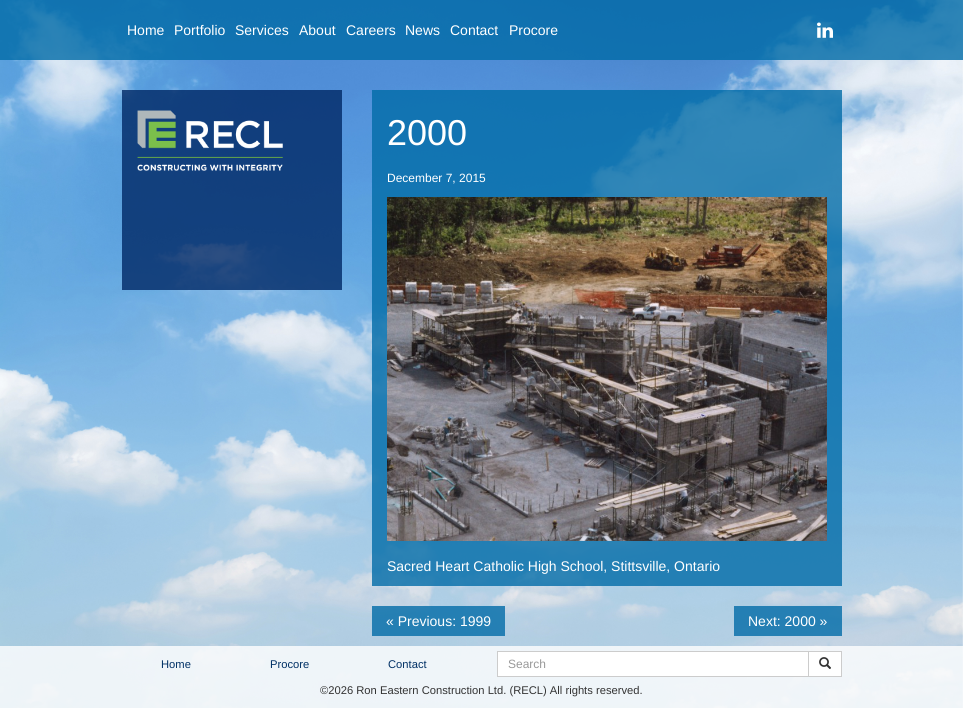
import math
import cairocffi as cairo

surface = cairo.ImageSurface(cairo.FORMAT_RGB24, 963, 708)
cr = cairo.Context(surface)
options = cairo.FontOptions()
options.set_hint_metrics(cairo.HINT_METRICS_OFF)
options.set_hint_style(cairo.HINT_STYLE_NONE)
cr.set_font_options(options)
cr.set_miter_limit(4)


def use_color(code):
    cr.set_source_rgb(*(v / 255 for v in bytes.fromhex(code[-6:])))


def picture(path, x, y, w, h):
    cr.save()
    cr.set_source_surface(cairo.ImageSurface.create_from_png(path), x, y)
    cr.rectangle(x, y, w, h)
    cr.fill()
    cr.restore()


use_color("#ffffff")
cr.paint()
picture("img1.png", 0, 0, 963, 708)
cr.set_source_rgba(0.008, 0.424, 0.655, 0.8)
cr.rectangle(0, 0, 963, 60)
cr.fill()
cr.select_font_face("Liberation Sans")
cr.set_font_size(14)
use_color("#ffffff")
cr.move_to(127, 35)
cr.show_text("Home")
cr.move_to(174, 35)
cr.show_text("Portfolio")
cr.move_to(235, 35)
cr.show_text("Services")
cr.move_to(299, 35)
cr.show_text("About")
cr.move_to(346, 35)
cr.show_text("Careers")
cr.move_to(405, 35)
cr.show_text("News")
cr.move_to(450, 35)
cr.show_text("Contact")
cr.move_to(509, 35)
cr.show_text("Procore")
picture("img2.png", 817, 22, 16, 16)
cr.set_source_rgba(0, 0.161, 0.396, 0.8)
cr.rectangle(122, 90, 220, 200)
cr.fill()
picture("img3.png", 137, 110, 146, 61)
cr.set_source_rgba(0.008, 0.424, 0.655, 0.8)
cr.rectangle(372, 90, 470, 496)
cr.fill()
cr.set_font_size(36)
use_color("#ffffff")
cr.move_to(387, 145)
cr.show_text("2000")
cr.set_font_size(12)
cr.move_to(387, 182)
cr.show_text("December 7, 2015")
picture("img4.png", 387, 197, 440, 344)
cr.set_font_size(14)
cr.move_to(387, 571)
cr.show_text("Sacred Heart Catholic High School, Stittsville, Ontario")
cr.set_source_rgba(0.008, 0.424, 0.655, 0.8)
cr.rectangle(372, 606, 133, 30)
cr.fill()
use_color("#ffffff")
cr.move_to(386, 626)
cr.show_text("« Previous: 1999")
cr.set_source_rgba(0.008, 0.424, 0.655, 0.8)
cr.rectangle(734, 606, 108, 30)
cr.fill()
use_color("#ffffff")
cr.move_to(748, 626)
cr.show_text("Next: 2000 »")
cr.set_source_rgba(1, 1, 1, 0.8)
cr.rectangle(0, 646, 963, 62)
cr.fill()
cr.set_font_size(11.2)
use_color("#003065")
cr.move_to(161, 668)
cr.show_text("Home")
cr.move_to(270, 668)
cr.show_text("Procore")
cr.move_to(388, 668)
cr.show_text("Contact")
use_color("#ffffff")
cr.rectangle(497.5, 651.5, 311, 25)
cr.fill_preserve()
use_color("#cccccc")
cr.set_line_width(1)
cr.stroke()
cr.set_font_size(12)
use_color("#999999")
cr.move_to(508, 668)
cr.show_text("Search")
use_color("#ffffff")
cr.rectangle(808.5, 651.5, 33, 25)
cr.fill_preserve()
use_color("#cccccc")
cr.stroke()
picture("img5.png", 819, 657, 12, 12)
cr.set_font_size(11.2)
use_color("#333333")
cr.move_to(320, 694)
cr.show_text("©2026 Ron Eastern Construction Ltd. (RECL) All rights reserved.")
surface.write_to_png("result.png")
